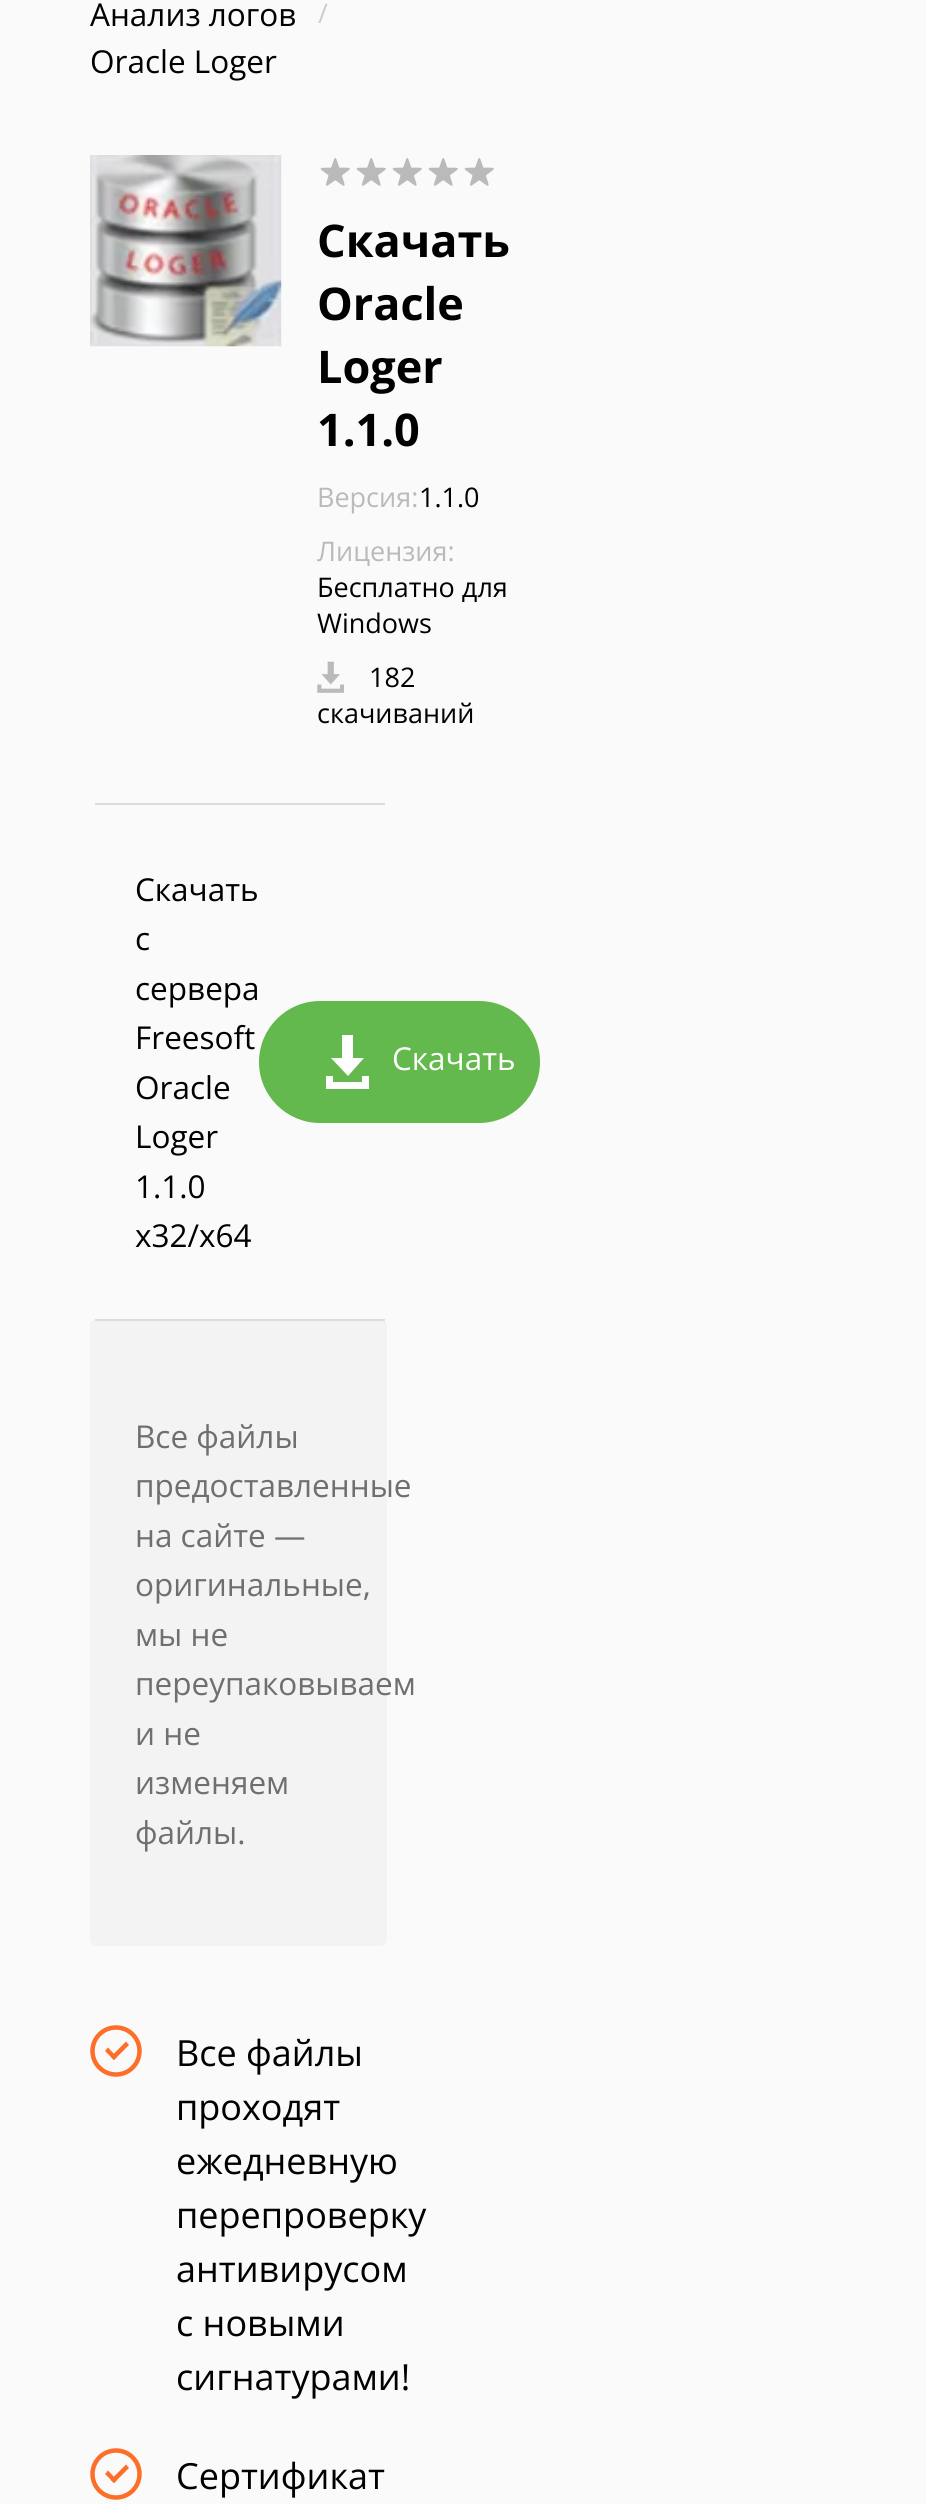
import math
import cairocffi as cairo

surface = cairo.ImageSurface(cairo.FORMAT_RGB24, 926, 2504)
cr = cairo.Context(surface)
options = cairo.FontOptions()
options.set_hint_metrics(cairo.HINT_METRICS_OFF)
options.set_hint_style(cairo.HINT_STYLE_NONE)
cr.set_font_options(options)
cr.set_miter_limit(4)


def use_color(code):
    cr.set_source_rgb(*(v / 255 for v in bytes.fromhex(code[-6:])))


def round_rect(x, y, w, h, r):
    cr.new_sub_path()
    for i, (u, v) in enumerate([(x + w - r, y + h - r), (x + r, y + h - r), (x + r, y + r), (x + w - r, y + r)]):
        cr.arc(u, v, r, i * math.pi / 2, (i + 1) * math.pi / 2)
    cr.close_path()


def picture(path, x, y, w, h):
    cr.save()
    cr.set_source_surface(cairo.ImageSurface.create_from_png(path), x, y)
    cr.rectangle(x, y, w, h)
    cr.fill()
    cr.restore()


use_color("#fafafa")
cr.paint()
cr.select_font_face("Open Sans")
cr.set_font_size(31.5)
use_color("#000000")
cr.move_to(90, 26)
cr.show_text("Анализ логов")
cr.set_font_size(27)
use_color("#cccccc")
cr.move_to(318, 23)
cr.show_text("/")
cr.set_font_size(31.5)
use_color("#000000")
cr.move_to(90, 73)
cr.show_text("Oracle Loger")
picture("img1.png", 90, 155, 192, 192)
picture("img2.png", 320, 158, 30, 28)
picture("img2.png", 356, 158, 30, 28)
picture("img2.png", 392, 158, 30, 28)
picture("img2.png", 428, 158, 30, 28)
picture("img2.png", 464, 158, 30, 28)
cr.select_font_face("Open Sans", cairo.FONT_SLANT_NORMAL, cairo.FONT_WEIGHT_BOLD)
cr.set_font_size(45)
cr.move_to(317, 257)
cr.show_text("Скачать")
cr.move_to(317, 320)
cr.show_text("Oracle")
cr.move_to(317, 383)
cr.show_text("Loger")
cr.move_to(317, 446)
cr.show_text("1.1.0")
cr.select_font_face("Open Sans")
cr.set_font_size(27)
use_color("#bababa")
cr.move_to(317, 507)
cr.show_text("Версия:")
use_color("#000000")
cr.move_to(419, 507)
cr.show_text("1.1.0")
use_color("#bababa")
cr.move_to(317, 561)
cr.show_text("Лицензия:")
use_color("#000000")
cr.move_to(317, 597)
cr.show_text("Бесплатно для")
cr.move_to(317, 633)
cr.show_text("Windows")
picture("img3.png", 317, 661, 27, 32)
cr.move_to(369, 687)
cr.show_text("182")
cr.move_to(317, 723)
cr.show_text("скачиваний")
use_color("#dcdcdc")
cr.rectangle(95, 803, 290, 2)
cr.fill()
cr.set_font_size(31.5)
use_color("#000000")
cr.move_to(135, 901)
cr.show_text("Скачать")
cr.move_to(135, 950)
cr.show_text("с")
cr.move_to(135, 1000)
cr.show_text("сервера")
cr.move_to(135, 1049)
cr.show_text("Freesoft")
cr.move_to(135, 1099)
cr.show_text("Oracle")
cr.move_to(135, 1148)
cr.show_text("Loger")
cr.move_to(135, 1198)
cr.show_text("1.1.0")
cr.move_to(135, 1247)
cr.show_text("x32/x64")
use_color("#63b94d")
round_rect(259, 1001, 281, 122, 61)
cr.fill()
use_color("#ffffff")
cr.new_path()
cr.move_to(348, 1076)
cr.line_to(364, 1058)
cr.line_to(353, 1058)
cr.line_to(353, 1035)
cr.line_to(342, 1035)
cr.line_to(342, 1058)
cr.line_to(331, 1058)
cr.close_path()
cr.move_to(362, 1076)
cr.line_to(362, 1082)
cr.line_to(333, 1082)
cr.line_to(333, 1076)
cr.line_to(326, 1076)
cr.line_to(326, 1089)
cr.line_to(369, 1089)
cr.line_to(369, 1076)
cr.close_path()
cr.fill()
cr.move_to(392, 1070)
cr.show_text("Скачать")
use_color("#f3f3f3")
round_rect(90, 1319, 297, 627, 7)
cr.fill()
use_color("#dcdcdc")
cr.rectangle(95, 1319, 290, 2)
cr.fill()
use_color("#6f6f6f")
cr.move_to(135, 1448)
cr.show_text("Все файлы")
cr.move_to(135, 1497)
cr.show_text("предоставленные")
cr.move_to(135, 1547)
cr.show_text("на сайте —")
cr.move_to(135, 1596)
cr.show_text("оригинальные,")
cr.move_to(135, 1646)
cr.show_text("мы не")
cr.move_to(135, 1695)
cr.show_text("переупаковываем")
cr.move_to(135, 1745)
cr.show_text("и не")
cr.move_to(135, 1794)
cr.show_text("изменяем")
cr.move_to(135, 1844)
cr.show_text("файлы.")
cr.new_path()
cr.arc(116, 2051, 23.5, 0, 2 * math.pi)
use_color("#fd6f29")
cr.set_line_width(4.5)
cr.stroke()
cr.new_path()
cr.move_to(126, 2041.5)
cr.line_to(129, 2045)
cr.line_to(114, 2060)
cr.line_to(110.5, 2057)
cr.close_path()
cr.fill()
cr.new_path()
cr.move_to(105, 2051)
cr.line_to(108, 2047.5)
cr.line_to(117, 2057)
cr.line_to(114, 2060)
cr.close_path()
cr.fill()
cr.set_font_size(36)
use_color("#000000")
cr.move_to(176, 2066)
cr.show_text("Все файлы")
cr.move_to(176, 2120)
cr.show_text("проходят")
cr.move_to(176, 2174)
cr.show_text("ежедневную")
cr.move_to(176, 2228)
cr.show_text("перепроверку")
cr.move_to(176, 2282)
cr.show_text("антивирусом")
cr.move_to(176, 2336)
cr.show_text("с новыми")
cr.move_to(176, 2390)
cr.show_text("сигнатурами!")
cr.new_path()
cr.arc(116, 2474, 23.5, 0, 2 * math.pi)
use_color("#fd6f29")
cr.stroke()
cr.new_path()
cr.move_to(126, 2464.5)
cr.line_to(129, 2468)
cr.line_to(114, 2483)
cr.line_to(110.5, 2480)
cr.close_path()
cr.fill()
cr.new_path()
cr.move_to(105, 2474)
cr.line_to(108, 2470.5)
cr.line_to(117, 2480)
cr.line_to(114, 2483)
cr.close_path()
cr.fill()
use_color("#000000")
cr.move_to(176, 2489)
cr.show_text("Сертификат")
surface.write_to_png("result.png")
